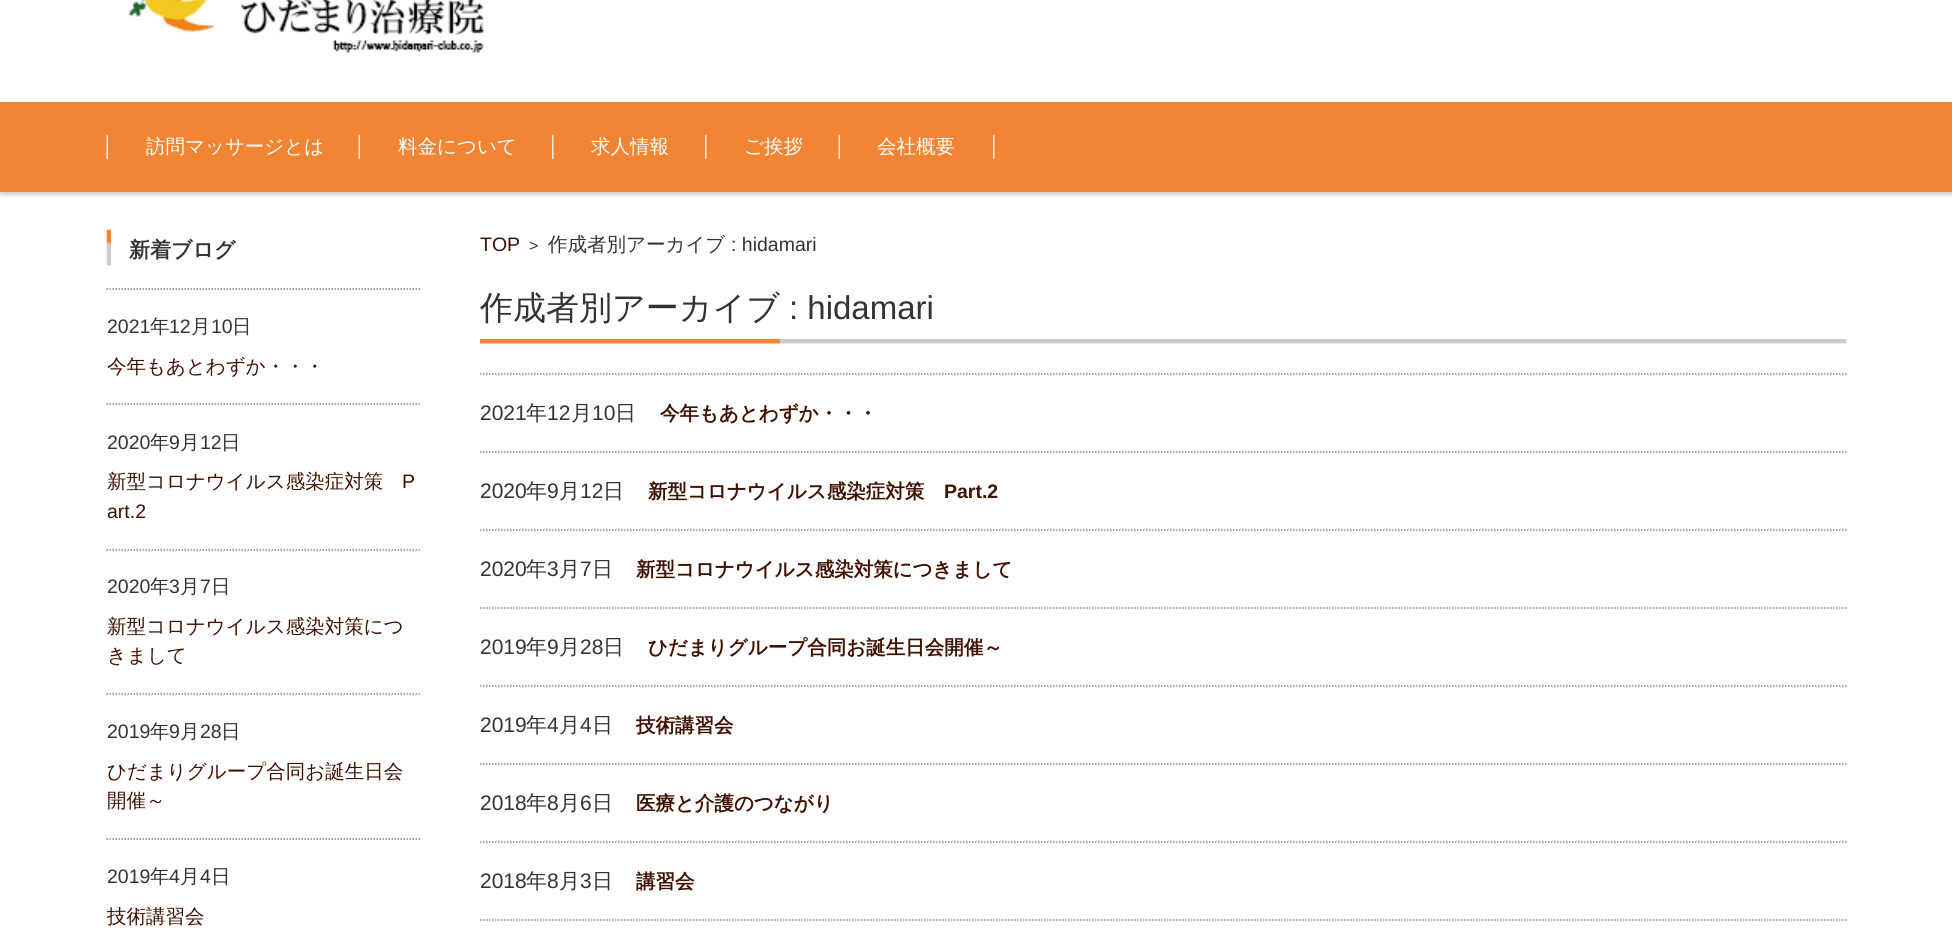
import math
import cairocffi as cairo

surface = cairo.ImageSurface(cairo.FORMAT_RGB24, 1952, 944)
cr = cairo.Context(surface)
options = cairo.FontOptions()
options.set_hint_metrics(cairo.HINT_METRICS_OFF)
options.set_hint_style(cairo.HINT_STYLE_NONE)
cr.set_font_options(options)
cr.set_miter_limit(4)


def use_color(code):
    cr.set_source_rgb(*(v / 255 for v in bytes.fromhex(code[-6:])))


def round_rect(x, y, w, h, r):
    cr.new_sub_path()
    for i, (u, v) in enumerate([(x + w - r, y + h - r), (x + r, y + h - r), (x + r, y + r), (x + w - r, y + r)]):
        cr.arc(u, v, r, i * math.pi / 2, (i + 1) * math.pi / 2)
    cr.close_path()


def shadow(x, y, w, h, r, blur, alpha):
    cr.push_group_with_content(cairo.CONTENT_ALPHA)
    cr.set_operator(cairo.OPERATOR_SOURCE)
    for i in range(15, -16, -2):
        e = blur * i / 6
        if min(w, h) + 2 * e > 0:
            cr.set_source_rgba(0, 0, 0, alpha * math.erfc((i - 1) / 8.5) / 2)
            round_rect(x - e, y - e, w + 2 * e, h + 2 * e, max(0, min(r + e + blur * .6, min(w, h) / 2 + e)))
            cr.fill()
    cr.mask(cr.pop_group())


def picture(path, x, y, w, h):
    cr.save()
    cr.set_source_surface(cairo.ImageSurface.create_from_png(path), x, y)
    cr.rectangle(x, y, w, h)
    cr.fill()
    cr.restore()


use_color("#ffffff")
cr.paint()
picture("img1.png", 128, 0, 357, 53)
use_color("#000000")
shadow(0, 105, 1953, 90, 0, 2, 0.2)
use_color("#f28534")
cr.rectangle(0, 102, 1952, 90)
cr.fill()
picture("img2.png", 106, 135, 2, 24)
cr.select_font_face("WenQuanYi Zen Hei Medium")
cr.set_font_size(19.5)
use_color("#ffffff")
cr.move_to(146, 153)
cr.show_text("訪問マッサージとは")
picture("img2.png", 358, 135, 2, 24)
cr.move_to(398, 153)
cr.show_text("料金について")
picture("img3.png", 552, 135, 2, 24)
cr.move_to(591, 153)
cr.show_text("求人情報")
picture("img3.png", 705, 135, 2, 24)
cr.move_to(744, 153)
cr.show_text("ご挨拶")
picture("img4.png", 838, 135, 157, 24)
cr.move_to(877, 153)
cr.show_text("会社概要")
picture("img5.png", 106, 229, 5, 37)
cr.select_font_face("WenQuanYi Zen Hei", cairo.FONT_SLANT_NORMAL, cairo.FONT_WEIGHT_BOLD)
cr.set_font_size(21)
use_color("#333333")
cr.move_to(129, 257)
cr.show_text("新着ブログ")
cr.new_path()
cr.move_to(106.5, 289)
cr.line_to(420, 289)
use_color("#888888")
cr.set_line_width(1.5)
cr.set_dash([1.5, 1.5])
cr.stroke()
cr.new_path()
cr.move_to(106.5, 404)
cr.line_to(420, 404)
cr.stroke()
cr.select_font_face("Liberation Sans")
cr.set_font_size(19.5)
use_color("#333333")
cr.move_to(107, 333)
cr.show_text("2021")
cr.select_font_face("WenQuanYi Zen Hei Medium")
cr.move_to(150, 333)
cr.show_text("年")
cr.select_font_face("Liberation Sans")
cr.move_to(169, 333)
cr.show_text("12")
cr.select_font_face("WenQuanYi Zen Hei Medium")
cr.move_to(191, 333)
cr.show_text("月")
cr.select_font_face("Liberation Sans")
cr.move_to(211, 333)
cr.show_text("10")
cr.select_font_face("WenQuanYi Zen Hei Medium")
cr.move_to(232, 333)
cr.show_text("日")
use_color("#401000")
cr.move_to(107, 373)
cr.show_text("今年もあとわずか・・・")
cr.new_path()
cr.move_to(106.5, 550)
cr.line_to(420, 550)
use_color("#888888")
cr.stroke()
cr.select_font_face("Liberation Sans")
use_color("#333333")
cr.move_to(107, 449)
cr.show_text("2020")
cr.select_font_face("WenQuanYi Zen Hei Medium")
cr.move_to(150, 449)
cr.show_text("年")
cr.select_font_face("Liberation Sans")
cr.move_to(169, 449)
cr.show_text("9")
cr.select_font_face("WenQuanYi Zen Hei Medium")
cr.move_to(180, 449)
cr.show_text("月")
cr.select_font_face("Liberation Sans")
cr.move_to(200, 449)
cr.show_text("12")
cr.select_font_face("WenQuanYi Zen Hei Medium")
cr.move_to(221, 449)
cr.show_text("日")
use_color("#401000")
cr.move_to(107, 488)
cr.show_text("新型コロナウイルス感染症対策")
cr.select_font_face("Liberation Sans")
cr.move_to(402, 488)
cr.show_text("P")
cr.move_to(107, 518)
cr.show_text("art.2")
cr.new_path()
cr.move_to(106.5, 694)
cr.line_to(420, 694)
use_color("#888888")
cr.stroke()
use_color("#333333")
cr.move_to(107, 593)
cr.show_text("2020")
cr.select_font_face("WenQuanYi Zen Hei Medium")
cr.move_to(150, 593)
cr.show_text("年")
cr.select_font_face("Liberation Sans")
cr.move_to(169, 593)
cr.show_text("3")
cr.select_font_face("WenQuanYi Zen Hei Medium")
cr.move_to(180, 593)
cr.show_text("月")
cr.select_font_face("Liberation Sans")
cr.move_to(200, 593)
cr.show_text("7")
cr.select_font_face("WenQuanYi Zen Hei Medium")
cr.move_to(211, 593)
cr.show_text("日")
use_color("#401000")
cr.move_to(107, 633)
cr.show_text("新型コロナウイルス感染対策につ")
cr.move_to(107, 662)
cr.show_text("きまして")
cr.new_path()
cr.move_to(106.5, 839)
cr.line_to(420, 839)
use_color("#888888")
cr.stroke()
cr.select_font_face("Liberation Sans")
use_color("#333333")
cr.move_to(107, 738)
cr.show_text("2019")
cr.select_font_face("WenQuanYi Zen Hei Medium")
cr.move_to(150, 738)
cr.show_text("年")
cr.select_font_face("Liberation Sans")
cr.move_to(169, 738)
cr.show_text("9")
cr.select_font_face("WenQuanYi Zen Hei Medium")
cr.move_to(180, 738)
cr.show_text("月")
cr.select_font_face("Liberation Sans")
cr.move_to(200, 738)
cr.show_text("28")
cr.select_font_face("WenQuanYi Zen Hei Medium")
cr.move_to(221, 738)
cr.show_text("日")
use_color("#401000")
cr.move_to(107, 778)
cr.show_text("ひだまりグループ合同お誕生日会")
cr.move_to(107, 807)
cr.show_text("開催～")
cr.select_font_face("Liberation Sans")
use_color("#333333")
cr.move_to(107, 883)
cr.show_text("2019")
cr.select_font_face("WenQuanYi Zen Hei Medium")
cr.move_to(150, 883)
cr.show_text("年")
cr.select_font_face("Liberation Sans")
cr.move_to(169, 883)
cr.show_text("4")
cr.select_font_face("WenQuanYi Zen Hei Medium")
cr.move_to(180, 883)
cr.show_text("月")
cr.select_font_face("Liberation Sans")
cr.move_to(200, 883)
cr.show_text("4")
cr.select_font_face("WenQuanYi Zen Hei Medium")
cr.move_to(211, 883)
cr.show_text("日")
cr.save()
cr.rectangle(107, 840, 313, 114)
cr.clip()
use_color("#401000")
cr.move_to(107, 923)
cr.show_text("技術講習会")
cr.restore()
cr.select_font_face("Liberation Sans")
use_color("#401000")
cr.move_to(480, 251)
cr.show_text("TOP")
cr.set_font_size(16)
use_color("#333333")
cr.move_to(529, 251)
cr.show_text(">")
cr.select_font_face("WenQuanYi Zen Hei Medium")
cr.set_font_size(19.5)
cr.move_to(548, 251)
cr.show_text("作成者別アーカイブ")
cr.select_font_face("Liberation Sans")
cr.move_to(731, 251)
cr.show_text(": hidamari")
picture("img6.png", 480, 339, 1367, 5)
cr.select_font_face("WenQuanYi Zen Hei Medium")
cr.set_font_size(33)
cr.move_to(480, 319)
cr.show_text("作成者別アーカイブ")
cr.select_font_face("Liberation Sans")
cr.move_to(789, 319)
cr.show_text(": hidamari")
cr.new_path()
cr.move_to(480, 374)
cr.line_to(1846.5, 374)
use_color("#888888")
cr.stroke()
cr.set_font_size(21)
use_color("#333333")
cr.move_to(480, 420)
cr.show_text("2021")
cr.select_font_face("WenQuanYi Zen Hei Medium")
cr.move_to(526, 420)
cr.show_text("年")
cr.select_font_face("Liberation Sans")
cr.move_to(547, 420)
cr.show_text("12")
cr.select_font_face("WenQuanYi Zen Hei Medium")
cr.move_to(571, 420)
cr.show_text("月")
cr.select_font_face("Liberation Sans")
cr.move_to(592, 420)
cr.show_text("10")
cr.select_font_face("WenQuanYi Zen Hei Medium")
cr.move_to(615, 420)
cr.show_text("日")
cr.select_font_face("WenQuanYi Zen Hei", cairo.FONT_SLANT_NORMAL, cairo.FONT_WEIGHT_BOLD)
cr.set_font_size(19.5)
use_color("#401000")
cr.move_to(660, 420)
cr.show_text("今年もあとわずか・・・")
cr.new_path()
cr.move_to(480, 452)
cr.line_to(1846.5, 452)
use_color("#888888")
cr.stroke()
cr.select_font_face("Liberation Sans")
cr.set_font_size(21)
use_color("#333333")
cr.move_to(480, 498)
cr.show_text("2020")
cr.select_font_face("WenQuanYi Zen Hei Medium")
cr.move_to(526, 498)
cr.show_text("年")
cr.select_font_face("Liberation Sans")
cr.move_to(547, 498)
cr.show_text("9")
cr.select_font_face("WenQuanYi Zen Hei Medium")
cr.move_to(559, 498)
cr.show_text("月")
cr.select_font_face("Liberation Sans")
cr.move_to(580, 498)
cr.show_text("12")
cr.select_font_face("WenQuanYi Zen Hei Medium")
cr.move_to(603, 498)
cr.show_text("日")
cr.select_font_face("WenQuanYi Zen Hei", cairo.FONT_SLANT_NORMAL, cairo.FONT_WEIGHT_BOLD)
cr.set_font_size(19.5)
use_color("#401000")
cr.move_to(648, 498)
cr.show_text("新型コロナウイルス感染症対策")
cr.select_font_face("Liberation Sans", cairo.FONT_SLANT_NORMAL, cairo.FONT_WEIGHT_BOLD)
cr.move_to(944, 498)
cr.show_text("Part.2")
cr.new_path()
cr.move_to(480, 530)
cr.line_to(1846.5, 530)
use_color("#888888")
cr.stroke()
cr.select_font_face("Liberation Sans")
cr.set_font_size(21)
use_color("#333333")
cr.move_to(480, 576)
cr.show_text("2020")
cr.select_font_face("WenQuanYi Zen Hei Medium")
cr.move_to(526, 576)
cr.show_text("年")
cr.select_font_face("Liberation Sans")
cr.move_to(547, 576)
cr.show_text("3")
cr.select_font_face("WenQuanYi Zen Hei Medium")
cr.move_to(559, 576)
cr.show_text("月")
cr.select_font_face("Liberation Sans")
cr.move_to(580, 576)
cr.show_text("7")
cr.select_font_face("WenQuanYi Zen Hei Medium")
cr.move_to(592, 576)
cr.show_text("日")
cr.select_font_face("WenQuanYi Zen Hei", cairo.FONT_SLANT_NORMAL, cairo.FONT_WEIGHT_BOLD)
cr.set_font_size(19.5)
use_color("#401000")
cr.move_to(636, 576)
cr.show_text("新型コロナウイルス感染対策につきまして")
cr.new_path()
cr.move_to(480, 608)
cr.line_to(1846.5, 608)
use_color("#888888")
cr.stroke()
cr.select_font_face("Liberation Sans")
cr.set_font_size(21)
use_color("#333333")
cr.move_to(480, 654)
cr.show_text("2019")
cr.select_font_face("WenQuanYi Zen Hei Medium")
cr.move_to(526, 654)
cr.show_text("年")
cr.select_font_face("Liberation Sans")
cr.move_to(547, 654)
cr.show_text("9")
cr.select_font_face("WenQuanYi Zen Hei Medium")
cr.move_to(559, 654)
cr.show_text("月")
cr.select_font_face("Liberation Sans")
cr.move_to(580, 654)
cr.show_text("28")
cr.select_font_face("WenQuanYi Zen Hei Medium")
cr.move_to(603, 654)
cr.show_text("日")
cr.select_font_face("WenQuanYi Zen Hei", cairo.FONT_SLANT_NORMAL, cairo.FONT_WEIGHT_BOLD)
cr.set_font_size(19.5)
use_color("#401000")
cr.move_to(648, 654)
cr.show_text("ひだまりグループ合同お誕生日会開催～")
cr.new_path()
cr.move_to(480, 686)
cr.line_to(1846.5, 686)
use_color("#888888")
cr.stroke()
cr.select_font_face("Liberation Sans")
cr.set_font_size(21)
use_color("#333333")
cr.move_to(480, 732)
cr.show_text("2019")
cr.select_font_face("WenQuanYi Zen Hei Medium")
cr.move_to(526, 732)
cr.show_text("年")
cr.select_font_face("Liberation Sans")
cr.move_to(547, 732)
cr.show_text("4")
cr.select_font_face("WenQuanYi Zen Hei Medium")
cr.move_to(559, 732)
cr.show_text("月")
cr.select_font_face("Liberation Sans")
cr.move_to(580, 732)
cr.show_text("4")
cr.select_font_face("WenQuanYi Zen Hei Medium")
cr.move_to(592, 732)
cr.show_text("日")
cr.select_font_face("WenQuanYi Zen Hei", cairo.FONT_SLANT_NORMAL, cairo.FONT_WEIGHT_BOLD)
cr.set_font_size(19.5)
use_color("#401000")
cr.move_to(636, 732)
cr.show_text("技術講習会")
cr.new_path()
cr.move_to(480, 764)
cr.line_to(1846.5, 764)
use_color("#888888")
cr.stroke()
cr.select_font_face("Liberation Sans")
cr.set_font_size(21)
use_color("#333333")
cr.move_to(480, 810)
cr.show_text("2018")
cr.select_font_face("WenQuanYi Zen Hei Medium")
cr.move_to(526, 810)
cr.show_text("年")
cr.select_font_face("Liberation Sans")
cr.move_to(547, 810)
cr.show_text("8")
cr.select_font_face("WenQuanYi Zen Hei Medium")
cr.move_to(559, 810)
cr.show_text("月")
cr.select_font_face("Liberation Sans")
cr.move_to(580, 810)
cr.show_text("6")
cr.select_font_face("WenQuanYi Zen Hei Medium")
cr.move_to(592, 810)
cr.show_text("日")
cr.select_font_face("WenQuanYi Zen Hei", cairo.FONT_SLANT_NORMAL, cairo.FONT_WEIGHT_BOLD)
cr.set_font_size(19.5)
use_color("#401000")
cr.move_to(636, 810)
cr.show_text("医療と介護のつながり")
cr.new_path()
cr.move_to(480, 842)
cr.line_to(1846.5, 842)
use_color("#888888")
cr.stroke()
cr.select_font_face("Liberation Sans")
cr.set_font_size(21)
use_color("#333333")
cr.move_to(480, 888)
cr.show_text("2018")
cr.select_font_face("WenQuanYi Zen Hei Medium")
cr.move_to(526, 888)
cr.show_text("年")
cr.select_font_face("Liberation Sans")
cr.move_to(547, 888)
cr.show_text("8")
cr.select_font_face("WenQuanYi Zen Hei Medium")
cr.move_to(559, 888)
cr.show_text("月")
cr.select_font_face("Liberation Sans")
cr.move_to(580, 888)
cr.show_text("3")
cr.select_font_face("WenQuanYi Zen Hei Medium")
cr.move_to(592, 888)
cr.show_text("日")
cr.select_font_face("WenQuanYi Zen Hei", cairo.FONT_SLANT_NORMAL, cairo.FONT_WEIGHT_BOLD)
cr.set_font_size(19.5)
use_color("#401000")
cr.move_to(636, 888)
cr.show_text("講習会")
cr.new_path()
cr.move_to(480, 920)
cr.line_to(1846.5, 920)
use_color("#888888")
cr.stroke()
surface.write_to_png("result.png")
